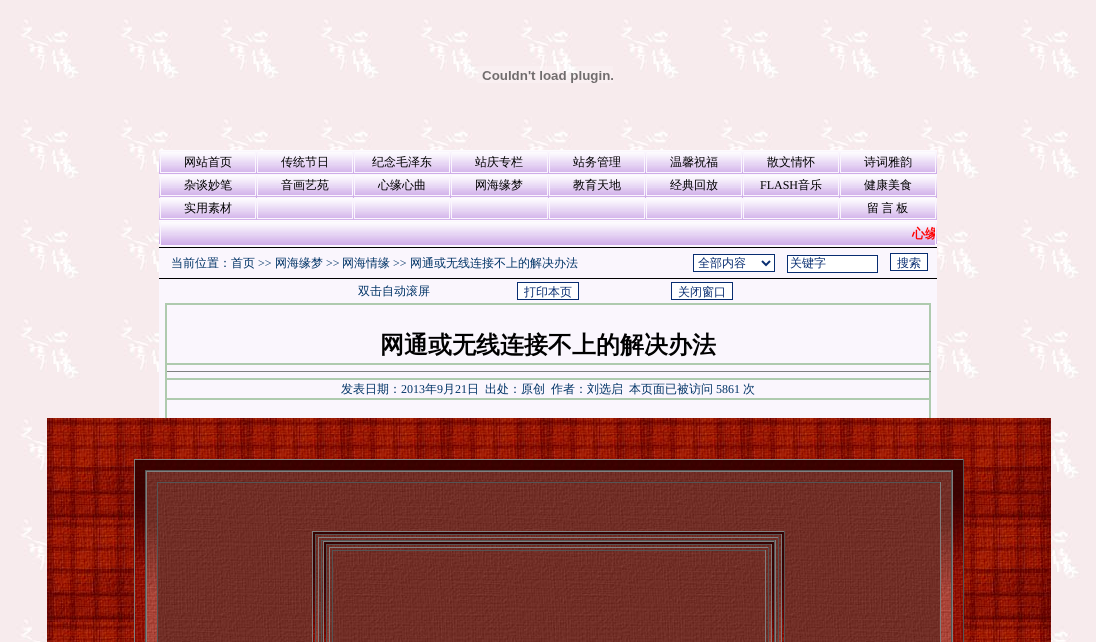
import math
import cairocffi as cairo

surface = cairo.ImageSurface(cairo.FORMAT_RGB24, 1096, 642)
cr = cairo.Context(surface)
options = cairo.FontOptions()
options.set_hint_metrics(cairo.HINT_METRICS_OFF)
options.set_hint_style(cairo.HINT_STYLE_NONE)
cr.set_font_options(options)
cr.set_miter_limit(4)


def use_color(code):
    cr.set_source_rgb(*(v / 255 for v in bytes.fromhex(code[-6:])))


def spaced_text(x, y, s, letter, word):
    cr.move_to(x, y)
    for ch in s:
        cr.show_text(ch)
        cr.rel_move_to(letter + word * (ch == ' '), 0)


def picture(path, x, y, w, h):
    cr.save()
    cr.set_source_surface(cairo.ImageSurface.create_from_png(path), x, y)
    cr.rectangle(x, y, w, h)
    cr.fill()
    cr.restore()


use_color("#ffffff")
cr.paint()
picture("img1.png", 0, 0, 1096, 642)
picture("img2.png", 476, 66, 137, 17)
picture("img3.png", 159, 150, 778, 70)
picture("img4.png", 161, 152, 94, 20)
cr.rectangle(160.5, 151.5, 95, 21)
use_color("#faf6fd")
cr.set_line_width(1)
cr.stroke()
cr.select_font_face("WenQuanYi Zen Hei Medium")
cr.set_font_size(12)
use_color("#000000")
cr.move_to(184, 166)
cr.show_text("网站首页")
picture("img4.png", 258, 152, 94, 20)
cr.rectangle(257.5, 151.5, 95, 21)
use_color("#faf6fd")
cr.stroke()
use_color("#000000")
cr.move_to(281, 166)
cr.show_text("传统节日")
picture("img4.png", 355, 152, 94, 20)
cr.rectangle(354.5, 151.5, 95, 21)
use_color("#faf6fd")
cr.stroke()
use_color("#000000")
cr.move_to(372, 166)
cr.show_text("纪念毛泽东")
picture("img5.png", 452, 152, 95, 20)
cr.rectangle(451.5, 151.5, 96, 21)
use_color("#faf6fd")
cr.stroke()
use_color("#000000")
cr.move_to(475, 166)
cr.show_text("站庆专栏")
picture("img4.png", 550, 152, 94, 20)
cr.rectangle(549.5, 151.5, 95, 21)
use_color("#faf6fd")
cr.stroke()
use_color("#000000")
cr.move_to(573, 166)
cr.show_text("站务管理")
picture("img4.png", 647, 152, 94, 20)
cr.rectangle(646.5, 151.5, 95, 21)
use_color("#faf6fd")
cr.stroke()
use_color("#000000")
cr.move_to(670, 166)
cr.show_text("温馨祝福")
picture("img4.png", 744, 152, 94, 20)
cr.rectangle(743.5, 151.5, 95, 21)
use_color("#faf6fd")
cr.stroke()
use_color("#000000")
cr.move_to(767, 166)
cr.show_text("散文情怀")
picture("img4.png", 841, 152, 94, 20)
cr.rectangle(840.5, 151.5, 95, 21)
use_color("#faf6fd")
cr.stroke()
use_color("#000000")
cr.move_to(864, 166)
cr.show_text("诗词雅韵")
picture("img6.png", 161, 175, 94, 13)
cr.rectangle(160.5, 174.5, 95, 21)
use_color("#faf6fd")
cr.stroke()
use_color("#000000")
cr.move_to(184, 189)
cr.show_text("杂谈妙笔")
picture("img6.png", 258, 175, 94, 13)
cr.rectangle(257.5, 174.5, 95, 21)
use_color("#faf6fd")
cr.stroke()
use_color("#000000")
cr.move_to(281, 189)
cr.show_text("音画艺苑")
picture("img6.png", 355, 175, 94, 13)
cr.rectangle(354.5, 174.5, 95, 21)
use_color("#faf6fd")
cr.stroke()
use_color("#000000")
cr.move_to(378, 189)
cr.show_text("心缘心曲")
picture("img7.png", 452, 175, 95, 13)
cr.rectangle(451.5, 174.5, 96, 21)
use_color("#faf6fd")
cr.stroke()
use_color("#000000")
cr.move_to(475, 189)
cr.show_text("网海缘梦")
picture("img6.png", 550, 175, 94, 13)
cr.rectangle(549.5, 174.5, 95, 21)
use_color("#faf6fd")
cr.stroke()
use_color("#000000")
cr.move_to(573, 189)
cr.show_text("教育天地")
picture("img6.png", 647, 175, 94, 13)
cr.rectangle(646.5, 174.5, 95, 21)
use_color("#faf6fd")
cr.stroke()
use_color("#000000")
cr.move_to(670, 189)
cr.show_text("经典回放")
picture("img6.png", 744, 175, 94, 13)
cr.rectangle(743.5, 174.5, 95, 21)
use_color("#faf6fd")
cr.stroke()
cr.select_font_face("Liberation Serif")
use_color("#000000")
cr.move_to(760, 189)
cr.show_text("FLASH")
cr.select_font_face("WenQuanYi Zen Hei Medium")
cr.move_to(798, 189)
cr.show_text("音乐")
picture("img6.png", 841, 175, 94, 13)
cr.rectangle(840.5, 174.5, 95, 21)
use_color("#faf6fd")
cr.stroke()
use_color("#000000")
cr.move_to(864, 189)
cr.show_text("健康美食")
cr.rectangle(160.5, 197.5, 95, 21)
use_color("#faf6fd")
cr.stroke()
use_color("#000000")
cr.move_to(184, 212)
cr.show_text("实用素材")
cr.rectangle(257.5, 197.5, 95, 21)
use_color("#faf6fd")
cr.stroke()
cr.rectangle(354.5, 197.5, 95, 21)
cr.stroke()
cr.rectangle(451.5, 197.5, 96, 21)
cr.stroke()
cr.rectangle(549.5, 197.5, 95, 21)
cr.stroke()
cr.rectangle(646.5, 197.5, 95, 21)
cr.stroke()
cr.rectangle(743.5, 197.5, 95, 21)
cr.stroke()
cr.rectangle(840.5, 197.5, 95, 21)
cr.stroke()
use_color("#000000")
spaced_text(867, 212, "留 言 板", 0, -1)
picture("img8.png", 159, 220, 778, 27)
picture("img9.png", 161, 222, 774, 23)
cr.rectangle(160.5, 221.5, 775, 24)
use_color("#faf6fd")
cr.stroke()
cr.save()
cr.rectangle(161, 224, 774, 19)
cr.clip()
cr.select_font_face("WenQuanYi Zen Hei", cairo.FONT_SLANT_NORMAL, cairo.FONT_WEIGHT_BOLD)
cr.set_font_size(13)
use_color("#ff0000")
cr.move_to(912, 238)
cr.show_text("心缘")
cr.restore()
use_color("#000000")
cr.rectangle(159, 247, 778, 1)
cr.fill()
use_color("#faf6fd")
cr.rectangle(159, 248, 778, 30)
cr.fill()
use_color("#003366")
cr.move_to(171, 267)
cr.show_text("当前位置：首页")
cr.select_font_face("Liberation Serif")
cr.move_to(258, 267)
cr.show_text(">>")
cr.select_font_face("WenQuanYi Zen Hei Medium")
cr.move_to(275, 267)
cr.show_text("网海缘梦")
cr.select_font_face("Liberation Serif")
cr.move_to(326, 267)
cr.show_text(">>")
cr.select_font_face("WenQuanYi Zen Hei Medium")
cr.move_to(342, 267)
cr.show_text("网海情缘")
cr.select_font_face("Liberation Serif")
cr.move_to(393, 267)
cr.show_text(">>")
cr.select_font_face("WenQuanYi Zen Hei Medium")
cr.move_to(410, 267)
cr.show_text("网通或无线连接不上的解决办法")
use_color("#ffffff")
cr.rectangle(694, 255, 80, 16)
cr.fill()
use_color("#082d71")
cr.rectangle(693, 254, 82, 1)
cr.fill()
cr.rectangle(774, 254, 1, 18)
cr.fill()
cr.rectangle(693, 271, 82, 1)
cr.fill()
use_color("#082d72")
cr.rectangle(693, 254, 1, 18)
cr.fill()
cr.new_path()
cr.move_to(762, 261)
cr.line_to(766, 265)
cr.line_to(770, 261)
use_color("#082d71")
cr.set_line_width(2)
cr.stroke()
cr.move_to(698, 267)
cr.show_text("全部内容")
use_color("#ffffff")
cr.rectangle(788, 256, 89, 16)
cr.fill()
use_color("#082d71")
cr.rectangle(787, 255, 91, 1)
cr.fill()
cr.rectangle(877, 255, 1, 18)
cr.fill()
cr.rectangle(787, 272, 91, 1)
cr.fill()
use_color("#082d72")
cr.rectangle(787, 255, 1, 18)
cr.fill()
use_color("#082d71")
cr.move_to(790, 267)
cr.show_text("关键字")
use_color("#ffffff")
cr.rectangle(891, 254, 36, 16)
cr.fill()
use_color("#082d71")
cr.rectangle(890, 253, 38, 1)
cr.fill()
cr.rectangle(927, 253, 1, 18)
cr.fill()
cr.rectangle(890, 270, 38, 1)
cr.fill()
use_color("#082d72")
cr.rectangle(890, 253, 1, 18)
cr.fill()
use_color("#082d71")
cr.move_to(897, 267)
cr.show_text("搜索")
use_color("#000000")
cr.rectangle(159, 278, 778, 1)
cr.fill()
use_color("#faf6fd")
cr.rectangle(159, 279, 778, 139)
cr.fill()
use_color("#003366")
cr.move_to(358, 295)
cr.show_text("双击自动滚屏")
use_color("#ffffff")
cr.rectangle(518, 283, 60, 16)
cr.fill()
use_color("#082d71")
cr.rectangle(517, 282, 62, 1)
cr.fill()
cr.rectangle(578, 282, 1, 18)
cr.fill()
cr.rectangle(517, 299, 62, 1)
cr.fill()
use_color("#082d72")
cr.rectangle(517, 282, 1, 18)
cr.fill()
use_color("#082d71")
cr.move_to(524, 296)
cr.show_text("打印本页")
use_color("#ffffff")
cr.rectangle(672, 283, 60, 16)
cr.fill()
use_color("#082d71")
cr.rectangle(671, 282, 62, 1)
cr.fill()
cr.rectangle(732, 282, 1, 18)
cr.fill()
cr.rectangle(671, 299, 62, 1)
cr.fill()
use_color("#082d72")
cr.rectangle(671, 282, 1, 18)
cr.fill()
use_color("#082d71")
cr.move_to(678, 296)
cr.show_text("关闭窗口")
cr.rectangle(165.5, 303.5, 765, 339)
use_color("#aecaae")
cr.set_line_width(1)
cr.stroke()
cr.rectangle(166.5, 304.5, 763, 59)
cr.stroke()
cr.select_font_face("WenQuanYi Zen Hei", cairo.FONT_SLANT_NORMAL, cairo.FONT_WEIGHT_BOLD)
cr.set_font_size(24)
use_color("#000000")
cr.move_to(380, 353)
cr.show_text("网通或无线连接不上的解决办法")
cr.rectangle(166.5, 364.5, 763, 14)
use_color("#aecaae")
cr.stroke()
use_color("#808080")
cr.rectangle(167, 371, 764, 1)
cr.fill()
cr.rectangle(166.5, 379.5, 763, 19)
use_color("#aecaae")
cr.stroke()
cr.select_font_face("WenQuanYi Zen Hei Medium")
cr.set_font_size(12)
use_color("#003366")
cr.move_to(341, 393)
cr.show_text("发表日期：")
cr.select_font_face("Liberation Serif")
cr.move_to(401, 393)
cr.show_text("2013")
cr.select_font_face("WenQuanYi Zen Hei Medium")
cr.move_to(425, 393)
cr.show_text("年")
cr.select_font_face("Liberation Serif")
cr.move_to(437, 393)
cr.show_text("9")
cr.select_font_face("WenQuanYi Zen Hei Medium")
cr.move_to(443, 393)
cr.show_text("月")
cr.select_font_face("Liberation Serif")
cr.move_to(455, 393)
cr.show_text("21")
cr.select_font_face("WenQuanYi Zen Hei Medium")
cr.move_to(467, 393)
cr.show_text("日")
cr.move_to(485, 393)
cr.show_text("出处：原创")
cr.move_to(551, 393)
cr.show_text("作者：刘选启")
cr.move_to(629, 393)
cr.show_text("本页面已被访问")
cr.select_font_face("Liberation Serif")
cr.move_to(716, 393)
cr.show_text("5861")
cr.select_font_face("WenQuanYi Zen Hei Medium")
cr.move_to(743, 393)
cr.show_text("次")
cr.rectangle(166.5, 399.5, 763, 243)
use_color("#aecaae")
cr.stroke()
picture("img10.png", 47, 418, 1004, 224)
picture("img11.png", 135, 460, 828, 182)
use_color("#808080")
cr.rectangle(134, 459, 830, 1)
cr.fill()
use_color("#555555")
cr.rectangle(963, 459, 1, 183)
cr.fill()
use_color("#808080")
cr.rectangle(134, 459, 1, 183)
cr.fill()
use_color("#555555")
cr.rectangle(145, 470, 808, 1)
cr.fill()
use_color("#808080")
cr.rectangle(952, 470, 1, 172)
cr.fill()
use_color("#555555")
cr.rectangle(145, 470, 1, 172)
cr.fill()
picture("img12.png", 147, 472, 804, 170)
use_color("#808080")
cr.rectangle(146, 471, 806, 1)
cr.fill()
use_color("#555555")
cr.rectangle(951, 471, 1, 171)
cr.fill()
use_color("#808080")
cr.rectangle(146, 471, 1, 171)
cr.fill()
use_color("#555555")
cr.rectangle(157, 482, 784, 1)
cr.fill()
use_color("#808080")
cr.rectangle(940, 482, 1, 160)
cr.fill()
use_color("#555555")
cr.rectangle(157, 482, 1, 160)
cr.fill()
picture("img13.png", 158, 483, 782, 159)
picture("img14.png", 313, 532, 471, 110)
use_color("#808080")
cr.rectangle(312, 531, 473, 1)
cr.fill()
use_color("#555555")
cr.rectangle(784, 531, 1, 111)
cr.fill()
use_color("#808080")
cr.rectangle(312, 531, 1, 111)
cr.fill()
use_color("#555555")
cr.rectangle(315, 534, 467, 1)
cr.fill()
use_color("#808080")
cr.rectangle(781, 534, 1, 108)
cr.fill()
use_color("#555555")
cr.rectangle(315, 534, 1, 108)
cr.fill()
picture("img15.png", 316, 535, 465, 107)
picture("img16.png", 319, 538, 459, 104)
use_color("#808080")
cr.rectangle(318, 537, 461, 1)
cr.fill()
use_color("#555555")
cr.rectangle(778, 537, 1, 105)
cr.fill()
use_color("#808080")
cr.rectangle(318, 537, 1, 105)
cr.fill()
use_color("#555555")
cr.rectangle(321, 540, 455, 1)
cr.fill()
use_color("#808080")
cr.rectangle(775, 540, 1, 102)
cr.fill()
use_color("#555555")
cr.rectangle(321, 540, 1, 102)
cr.fill()
picture("img17.png", 324, 542, 450, 100)
use_color("#808080")
cr.rectangle(323, 541, 452, 1)
cr.fill()
use_color("#555555")
cr.rectangle(774, 541, 1, 101)
cr.fill()
use_color("#808080")
cr.rectangle(323, 541, 1, 101)
cr.fill()
use_color("#555555")
cr.rectangle(326, 544, 446, 1)
cr.fill()
use_color("#808080")
cr.rectangle(771, 544, 1, 98)
cr.fill()
use_color("#555555")
cr.rectangle(326, 544, 1, 98)
cr.fill()
picture("img18.png", 327, 545, 444, 97)
picture("img19.png", 330, 548, 438, 94)
use_color("#808080")
cr.rectangle(329, 547, 440, 1)
cr.fill()
use_color("#555555")
cr.rectangle(768, 547, 1, 95)
cr.fill()
use_color("#808080")
cr.rectangle(329, 547, 1, 95)
cr.fill()
use_color("#555555")
cr.rectangle(332, 550, 434, 1)
cr.fill()
use_color("#808080")
cr.rectangle(765, 550, 1, 92)
cr.fill()
use_color("#555555")
cr.rectangle(332, 550, 1, 92)
cr.fill()
surface.write_to_png("result.png")
